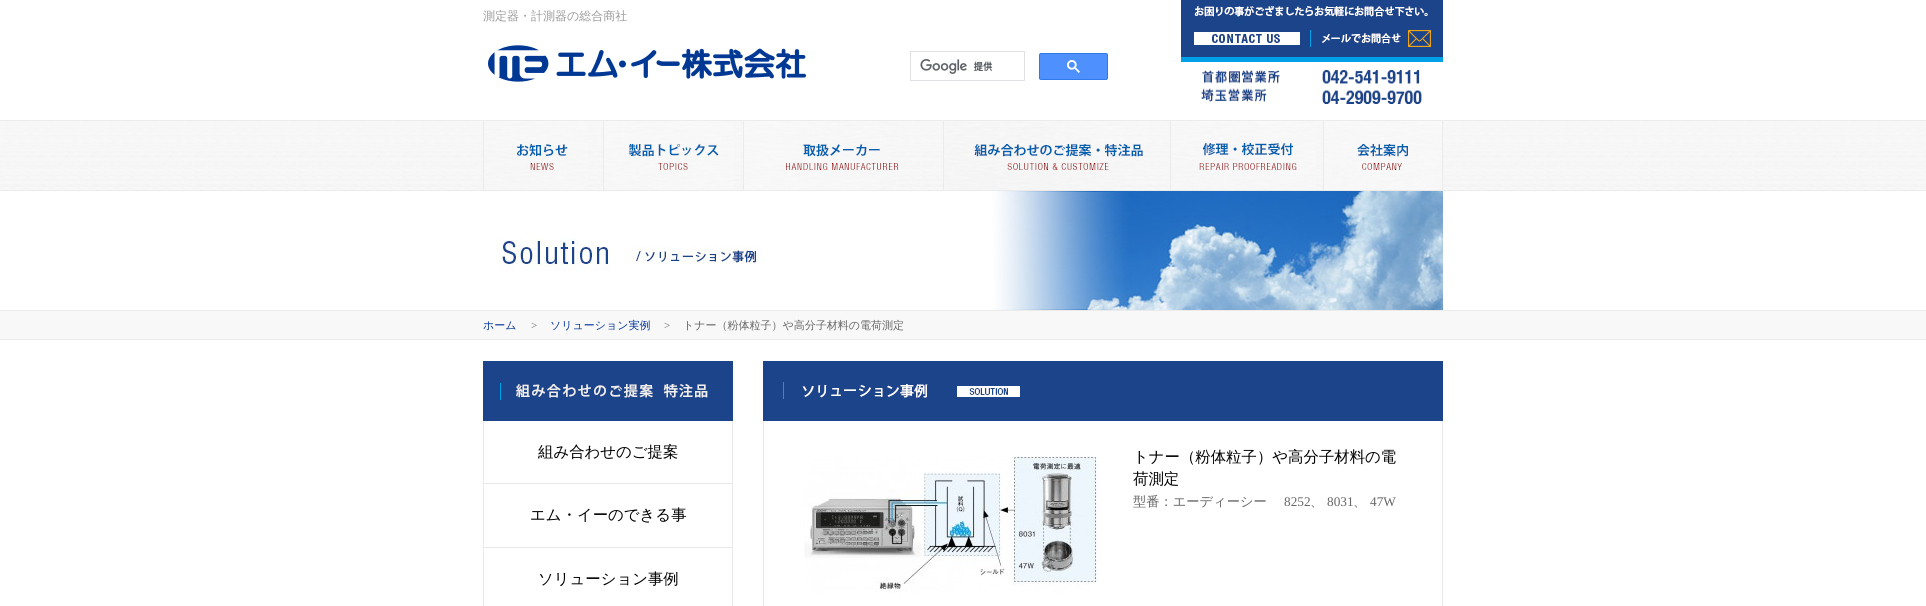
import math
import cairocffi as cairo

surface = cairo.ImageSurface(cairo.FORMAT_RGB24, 1926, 606)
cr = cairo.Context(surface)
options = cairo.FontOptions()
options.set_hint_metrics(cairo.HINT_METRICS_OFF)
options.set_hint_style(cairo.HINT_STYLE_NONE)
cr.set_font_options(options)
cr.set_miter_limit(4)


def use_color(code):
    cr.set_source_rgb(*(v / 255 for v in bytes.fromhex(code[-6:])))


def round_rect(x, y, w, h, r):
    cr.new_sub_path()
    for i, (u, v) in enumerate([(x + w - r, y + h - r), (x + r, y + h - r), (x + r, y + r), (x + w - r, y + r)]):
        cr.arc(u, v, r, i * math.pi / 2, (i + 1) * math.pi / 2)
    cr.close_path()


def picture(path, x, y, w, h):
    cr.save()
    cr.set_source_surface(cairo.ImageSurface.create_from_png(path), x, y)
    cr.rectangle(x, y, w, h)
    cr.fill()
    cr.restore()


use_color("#ffffff")
cr.paint()
picture("img1.png", 0, 120, 1926, 220)
cr.select_font_face("WenQuanYi Zen Hei Medium")
cr.set_font_size(12)
use_color("#999999")
cr.move_to(483, 20)
cr.show_text("測定器・計測器の総合商社")
picture("img2.png", 1181, 0, 262, 62)
picture("img3.png", 1201, 70, 221, 34)
picture("img4.png", 488, 45, 318, 37)
cr.rectangle(910.5, 51.5, 114, 29)
use_color("#dfe1e5")
cr.set_line_width(1)
cr.stroke()
picture("img5.png", 920, 59, 73, 15)
use_color("#4d90fe")
round_rect(1039.5, 53.5, 68, 26, 1.5)
cr.fill_preserve()
use_color("#3079ed")
cr.stroke()
picture("img6.png", 1067, 60, 13, 13)
picture("img7.png", 483, 121, 105, 69)
picture("img8.png", 603, 121, 131, 69)
picture("img9.png", 743, 121, 156, 69)
picture("img10.png", 943, 121, 200, 69)
picture("img11.png", 1170, 121, 146, 69)
picture("img12.png", 1323, 121, 120, 69)
picture("img13.png", 499, 191, 944, 119)
cr.set_font_size(11)
use_color("#003399")
cr.move_to(483, 329)
cr.show_text("ホーム")
cr.select_font_face("Liberation Serif")
use_color("#666666")
cr.move_to(531, 329)
cr.show_text(">")
cr.select_font_face("WenQuanYi Zen Hei Medium")
use_color("#003399")
cr.move_to(550, 329)
cr.show_text("ソリューション実例")
cr.select_font_face("Liberation Serif")
use_color("#666666")
cr.move_to(664, 329)
cr.show_text(">")
cr.select_font_face("WenQuanYi Zen Hei Medium")
cr.move_to(683, 329)
cr.show_text("トナー（粉体粒子）や高分子材料の電荷測定")
picture("img14.png", 483, 361, 250, 60)
use_color("#e9e9ea")
cr.rectangle(732, 421, 1, 185)
cr.fill()
cr.rectangle(483, 421, 1, 185)
cr.fill()
cr.rectangle(484, 483, 248, 1)
cr.fill()
cr.set_font_size(15.4)
use_color("#000000")
cr.move_to(538, 457)
cr.show_text("組み合わせのご提案")
use_color("#e9e9ea")
cr.rectangle(484, 547, 248, 1)
cr.fill()
use_color("#000000")
cr.move_to(530, 520)
cr.show_text("エム・イーのできる事")
cr.move_to(538, 584)
cr.show_text("ソリューション事例")
picture("img15.png", 763, 361, 680, 60)
use_color("#e9e9ea")
cr.rectangle(1442, 421, 1, 185)
cr.fill()
cr.rectangle(763, 421, 1, 185)
cr.fill()
picture("img16.png", 804, 456, 295, 137)
use_color("#000000")
cr.move_to(1133, 462)
cr.show_text("トナー（粉体粒子）や高分子材料の電")
cr.move_to(1133, 484)
cr.show_text("荷測定")
cr.set_font_size(13.25)
use_color("#666666")
cr.move_to(1133, 506)
cr.show_text("型番：エーディーシー")
cr.select_font_face("Liberation Serif")
cr.move_to(1284, 506)
cr.show_text("8252")
cr.select_font_face("WenQuanYi Zen Hei Medium")
cr.move_to(1310, 506)
cr.show_text("、")
cr.select_font_face("Liberation Serif")
cr.move_to(1327, 506)
cr.show_text("8031")
cr.select_font_face("WenQuanYi Zen Hei Medium")
cr.move_to(1353, 506)
cr.show_text("、")
cr.select_font_face("Liberation Serif")
cr.move_to(1370, 506)
cr.show_text("47W")
surface.write_to_png("result.png")
